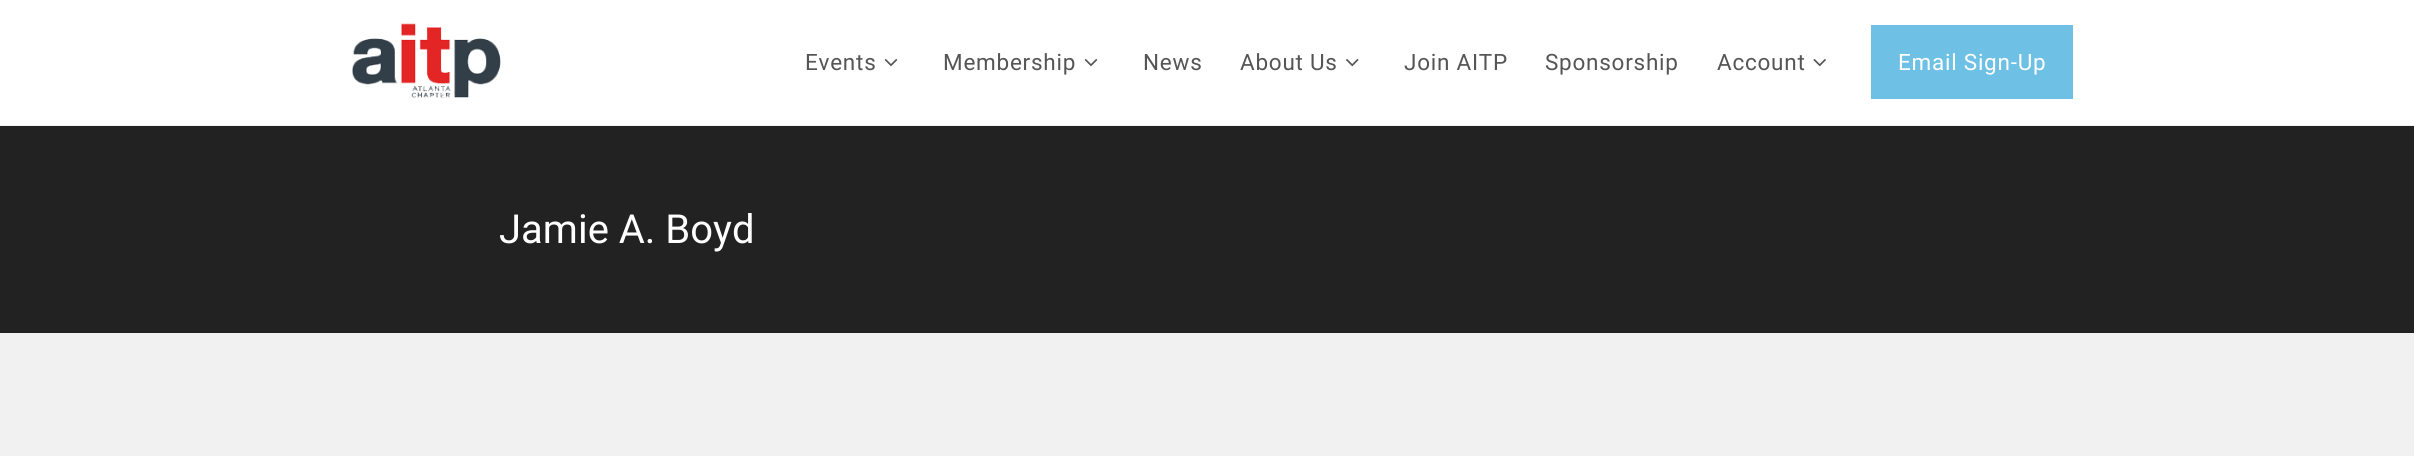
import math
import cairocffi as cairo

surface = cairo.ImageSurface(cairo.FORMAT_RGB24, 2414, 456)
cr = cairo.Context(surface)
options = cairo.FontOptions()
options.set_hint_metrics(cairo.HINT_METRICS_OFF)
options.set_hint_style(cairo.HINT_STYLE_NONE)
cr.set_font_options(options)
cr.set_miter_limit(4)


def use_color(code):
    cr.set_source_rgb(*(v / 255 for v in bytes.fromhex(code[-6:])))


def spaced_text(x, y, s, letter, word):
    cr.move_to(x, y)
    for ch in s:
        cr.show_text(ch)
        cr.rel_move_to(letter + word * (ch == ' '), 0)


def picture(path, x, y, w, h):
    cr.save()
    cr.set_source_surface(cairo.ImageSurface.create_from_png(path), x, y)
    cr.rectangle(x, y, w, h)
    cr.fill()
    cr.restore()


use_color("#f1f1f1")
cr.paint()
use_color("#ffffff")
cr.rectangle(0, 0, 2414, 125)
cr.fill()
picture("img1.png", 352, 23, 149, 75)
cr.select_font_face("Roboto")
cr.set_font_size(22.5)
use_color("#555555")
spaced_text(805, 70, "Events", 0.75, 0)
picture("img2.png", 884, 59, 14, 8)
spaced_text(943, 70, "Membership", 0.75, 0)
picture("img2.png", 1084, 59, 14, 8)
spaced_text(1143, 70, "News", 0.75, 0)
spaced_text(1240, 70, "About Us", 0.75, 0)
picture("img3.png", 1346, 59, 13, 8)
spaced_text(1404, 70, "Join AITP", 0.75, 0)
spaced_text(1545, 70, "Sponsorship", 0.75, 0)
spaced_text(1717, 70, "Account", 0.75, 0)
picture("img4.png", 1813, 59, 13, 8)
use_color("#6ec1e4")
cr.rectangle(1871, 25, 202, 74)
cr.fill()
use_color("#ffffff")
spaced_text(1898, 70, "Email Sign-Up", 0.75, 0)
use_color("#222222")
cr.rectangle(0, 126, 2414, 207)
cr.fill()
cr.set_font_size(40)
use_color("#ffffff")
cr.move_to(499, 243)
cr.show_text("Jamie A. Boyd")
surface.write_to_png("result.png")
